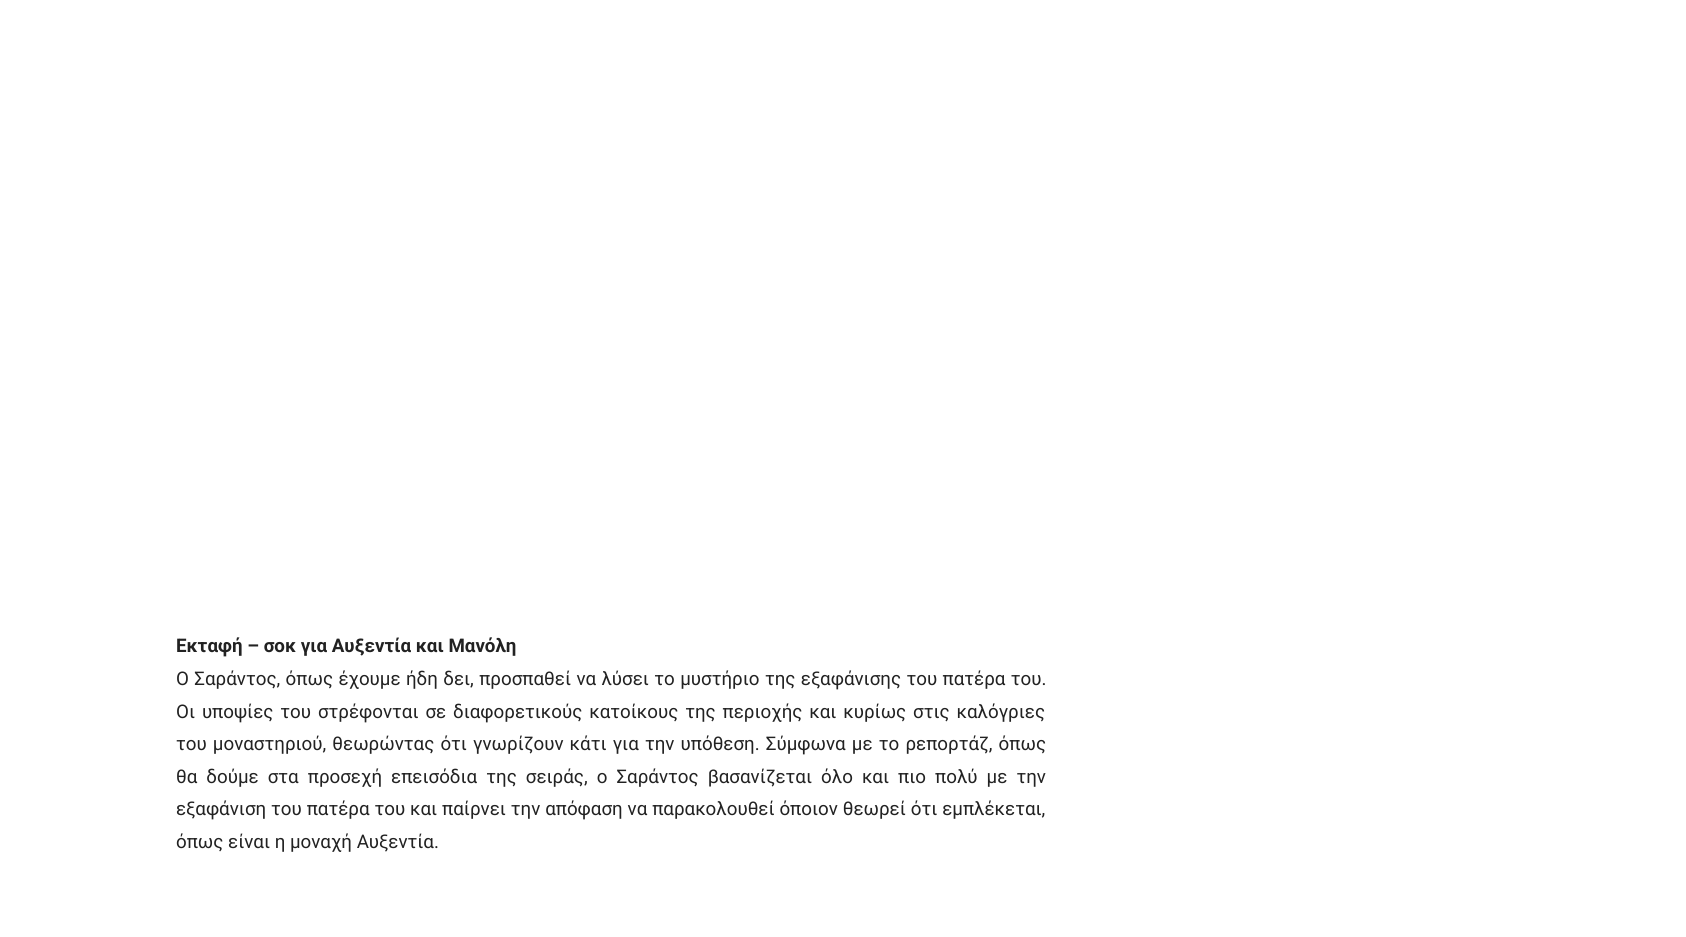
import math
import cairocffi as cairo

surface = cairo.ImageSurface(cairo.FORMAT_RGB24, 1686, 937)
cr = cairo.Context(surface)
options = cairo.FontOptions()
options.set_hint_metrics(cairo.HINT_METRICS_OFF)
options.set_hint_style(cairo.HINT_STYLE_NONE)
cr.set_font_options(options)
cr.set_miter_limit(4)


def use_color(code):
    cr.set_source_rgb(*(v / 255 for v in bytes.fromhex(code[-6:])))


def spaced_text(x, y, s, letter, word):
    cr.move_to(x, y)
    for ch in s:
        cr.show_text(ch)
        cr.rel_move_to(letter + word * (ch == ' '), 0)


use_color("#ffffff")
cr.paint()
cr.select_font_face("Roboto", cairo.FONT_SLANT_NORMAL, cairo.FONT_WEIGHT_BOLD)
cr.set_font_size(18.75)
use_color("#222222")
cr.move_to(176, 652)
cr.show_text("Εκταφή – σοκ για Αυξεντία και Μανόλη")
cr.select_font_face("Roboto")
spaced_text(176, 685, "Ο Σαράντος, όπως έχουμε ήδη δει, προσπαθεί να λύσει το μυστήριο της εξαφάνισης του πατέρα του.", 0, 0.75)
spaced_text(176, 718, "Οι υποψίες του στρέφονται σε διαφορετικούς κατοίκους της περιοχής και κυρίως στις καλόγριες", 0, 2.25)
spaced_text(176, 750, "του μοναστηριού, θεωρώντας ότι γνωρίζουν κάτι για την υπόθεση. Σύμφωνα με το ρεπορτάζ, όπως", 0, 1.5)
spaced_text(176, 783, "θα δούμε στα προσεχή επεισόδια της σειράς, ο Σαράντος βασανίζεται όλο και πιο πολύ με την", 0, 4.4)
spaced_text(176, 815, "εξαφάνιση του πατέρα του και παίρνει την απόφαση να παρακολουθεί όποιον θεωρεί ότι εμπλέκεται,", 0, 0.25)
cr.move_to(176, 848)
cr.show_text("όπως είναι η μοναχή Αυξεντία.")
surface.write_to_png("result.png")
